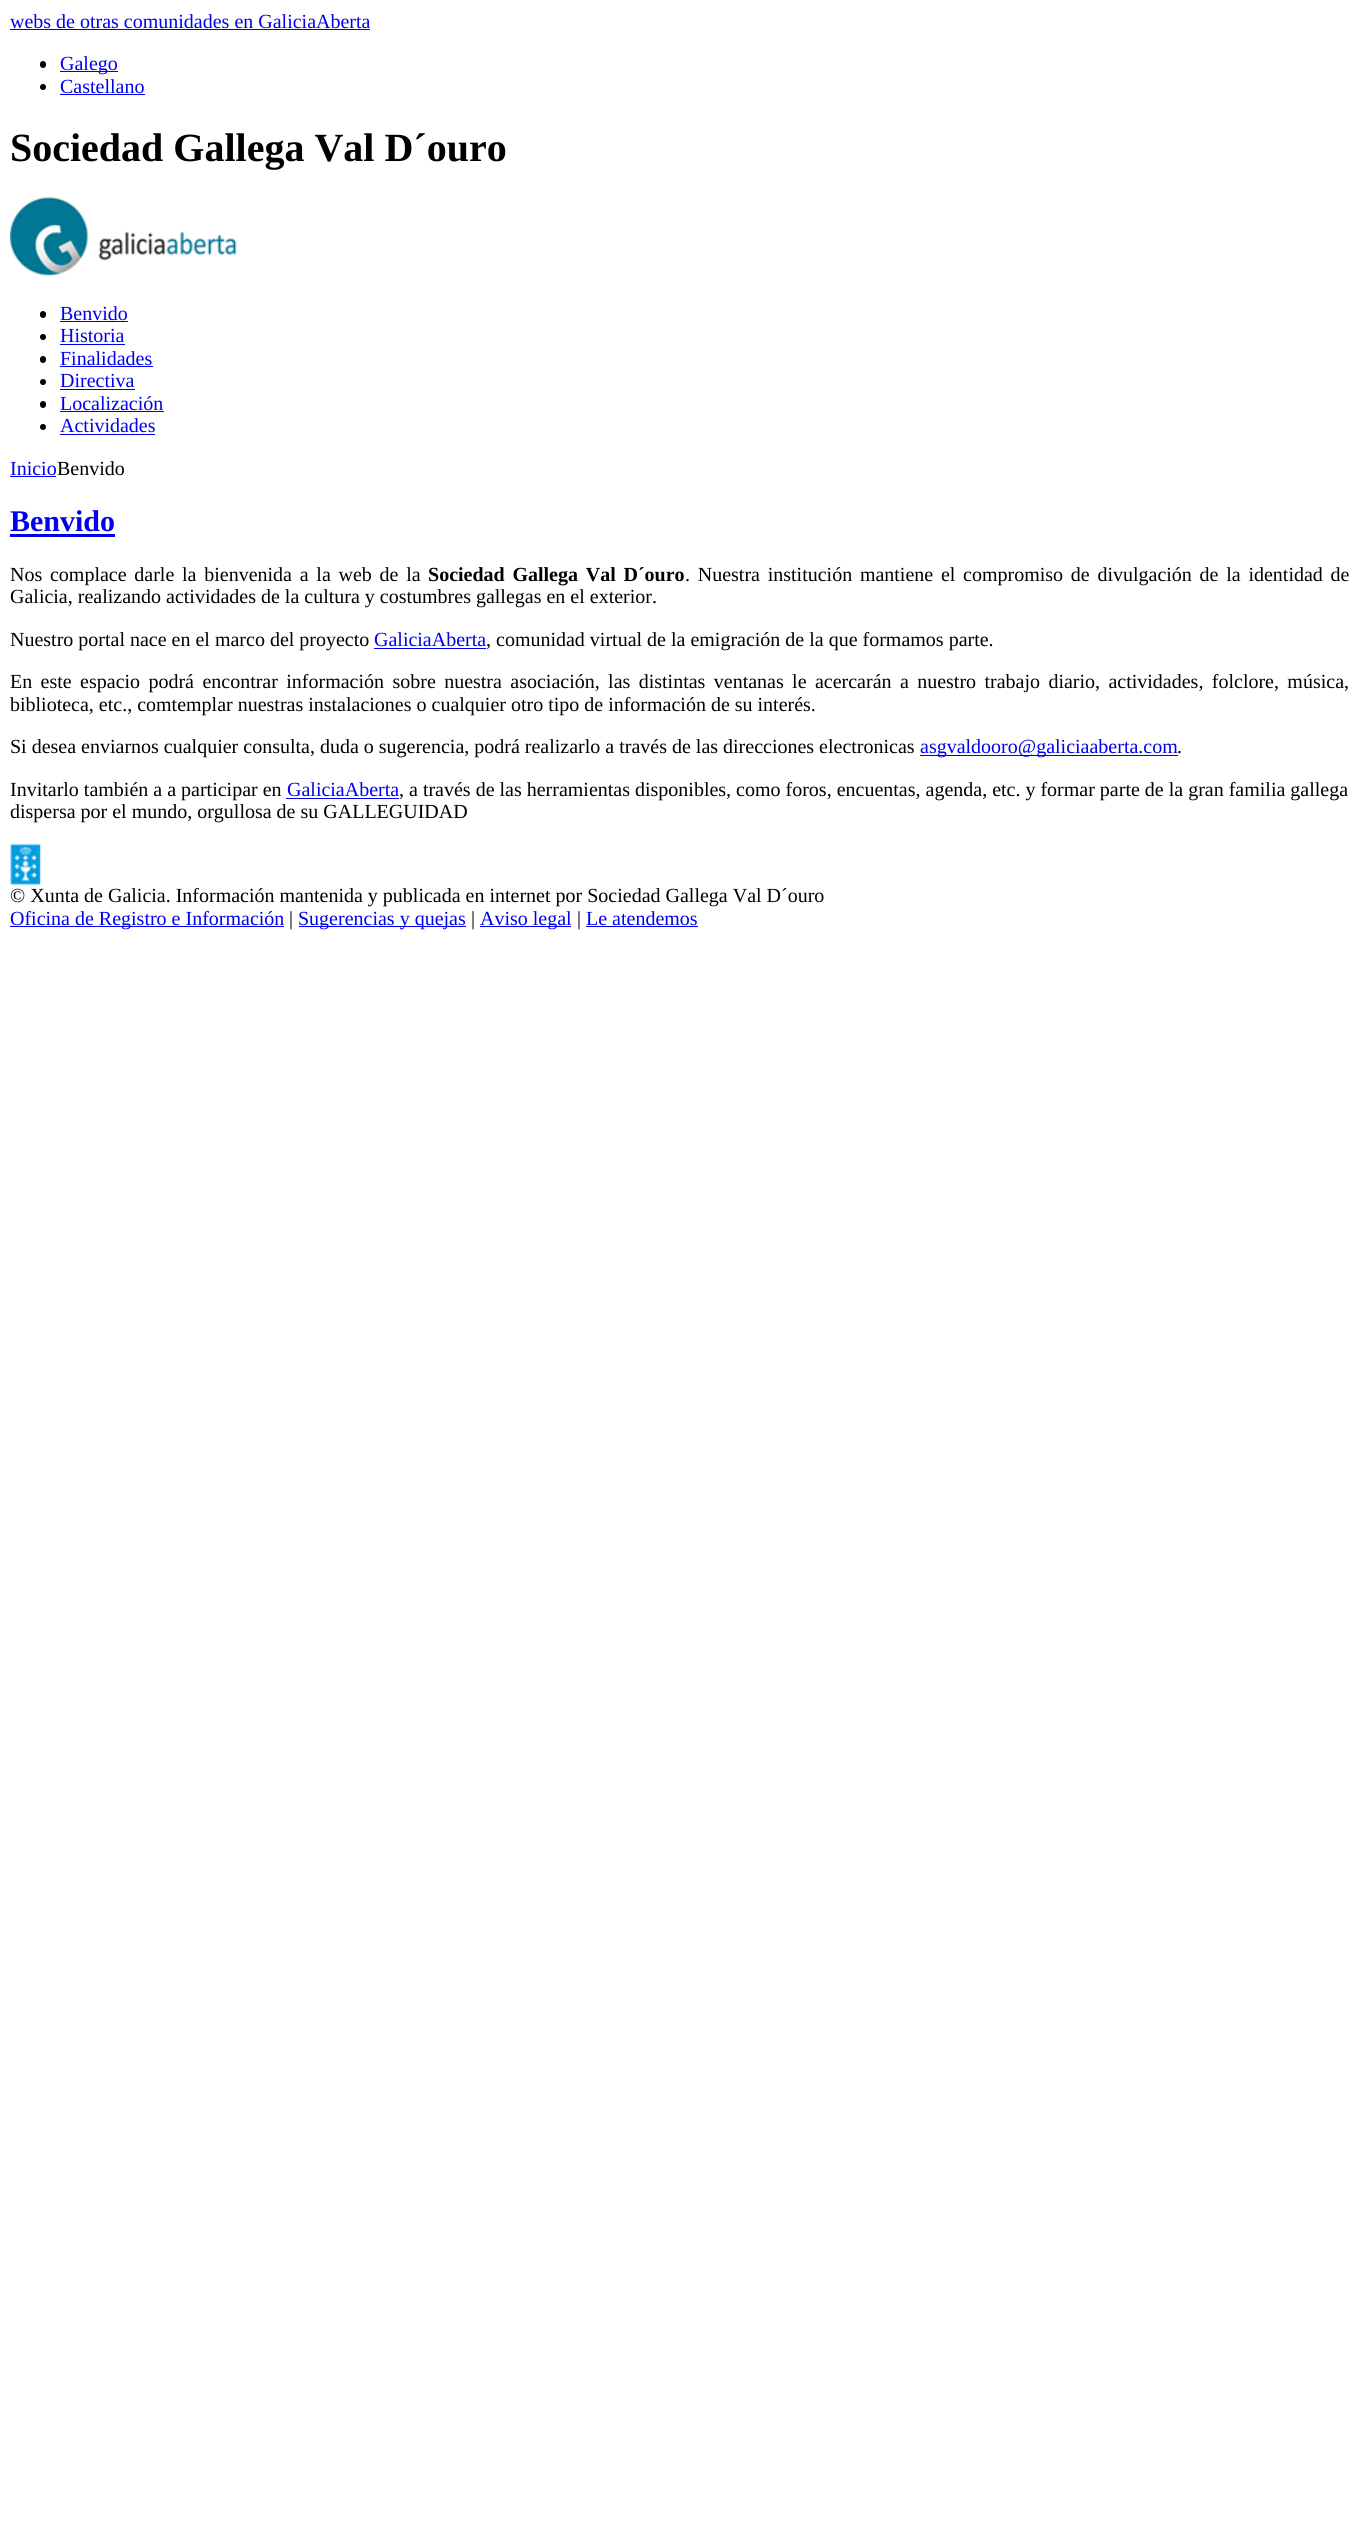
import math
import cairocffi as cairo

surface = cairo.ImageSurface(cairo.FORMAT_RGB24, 1358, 2529)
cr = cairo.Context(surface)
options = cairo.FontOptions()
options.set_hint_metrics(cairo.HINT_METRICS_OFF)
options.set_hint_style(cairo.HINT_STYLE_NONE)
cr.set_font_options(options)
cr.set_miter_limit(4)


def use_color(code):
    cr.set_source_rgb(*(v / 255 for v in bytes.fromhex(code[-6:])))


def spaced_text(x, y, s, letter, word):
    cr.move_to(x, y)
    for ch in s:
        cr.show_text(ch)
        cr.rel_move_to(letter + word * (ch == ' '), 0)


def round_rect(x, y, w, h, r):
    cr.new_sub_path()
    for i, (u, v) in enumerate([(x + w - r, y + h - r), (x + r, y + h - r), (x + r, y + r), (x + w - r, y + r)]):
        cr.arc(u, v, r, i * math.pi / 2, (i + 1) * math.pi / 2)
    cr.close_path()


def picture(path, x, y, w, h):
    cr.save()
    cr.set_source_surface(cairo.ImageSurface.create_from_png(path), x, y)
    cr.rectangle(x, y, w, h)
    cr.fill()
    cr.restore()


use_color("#ffffff")
cr.paint()
cr.select_font_face("Liberation Serif")
cr.set_font_size(20)
use_color("#0000ee")
cr.move_to(10, 28)
cr.show_text("webs de otras comunidades en GaliciaAberta")
cr.rectangle(10, 29, 360, 1)
cr.fill()
use_color("#000000")
round_rect(40, 61, 6, 7, 3)
cr.fill()
use_color("#0000ee")
cr.rectangle(60, 71, 58, 1)
cr.fill()
cr.move_to(60, 70)
cr.show_text("Galego")
use_color("#000000")
cr.new_path()
cr.arc(43, 87, 3, 0, 2 * math.pi)
cr.fill()
use_color("#0000ee")
cr.move_to(60, 93)
cr.show_text("Castellano")
cr.rectangle(60, 94, 85, 1)
cr.fill()
cr.select_font_face("Liberation Serif", cairo.FONT_SLANT_NORMAL, cairo.FONT_WEIGHT_BOLD)
cr.set_font_size(40)
use_color("#000000")
cr.move_to(10, 161)
cr.show_text("Sociedad Gallega Val D´ouro")
picture("img1.png", 10, 197, 227, 79)
round_rect(40, 311, 6, 7, 3)
cr.fill()
cr.select_font_face("Liberation Serif")
cr.set_font_size(20)
use_color("#0000ee")
cr.move_to(60, 320)
cr.show_text("Benvido")
cr.rectangle(60, 321, 68, 1)
cr.fill()
use_color("#000000")
cr.arc(43, 337, 3, 0, 2 * math.pi)
cr.fill()
use_color("#0000ee")
cr.move_to(60, 342)
cr.show_text("Historia")
cr.rectangle(60, 344, 65, 1)
cr.fill()
use_color("#000000")
round_rect(40, 356, 6, 7, 3)
cr.fill()
use_color("#0000ee")
cr.move_to(60, 365)
cr.show_text("Finalidades")
cr.rectangle(60, 366, 93, 1)
cr.fill()
use_color("#000000")
cr.arc(43, 382, 3, 0, 2 * math.pi)
cr.fill()
use_color("#0000ee")
cr.move_to(60, 387)
cr.show_text("Directiva")
cr.rectangle(60, 389, 75, 1)
cr.fill()
use_color("#000000")
round_rect(40, 401, 6, 7, 3)
cr.fill()
use_color("#0000ee")
cr.move_to(60, 410)
cr.show_text("Localización")
cr.rectangle(60, 411, 104, 1)
cr.fill()
use_color("#000000")
cr.arc(43, 427, 3, 0, 2 * math.pi)
cr.fill()
use_color("#0000ee")
cr.move_to(60, 432)
cr.show_text("Actividades")
cr.rectangle(60, 434, 95, 1)
cr.fill()
cr.move_to(10, 475)
cr.show_text("Inicio")
cr.rectangle(10, 476, 46, 1)
cr.fill()
use_color("#000000")
cr.move_to(57, 475)
cr.show_text("Benvido")
cr.select_font_face("Liberation Serif", cairo.FONT_SLANT_NORMAL, cairo.FONT_WEIGHT_BOLD)
cr.set_font_size(30)
use_color("#0000ee")
cr.move_to(10, 531)
cr.show_text("Benvido")
cr.rectangle(10, 534, 105, 3)
cr.fill()
cr.select_font_face("Liberation Serif")
cr.set_font_size(20)
use_color("#000000")
spaced_text(10, 581, "Nos complace darle la bienvenida a la web de la", 0, 2.75)
cr.select_font_face("Liberation Serif", cairo.FONT_SLANT_NORMAL, cairo.FONT_WEIGHT_BOLD)
spaced_text(428, 581, "Sociedad Gallega Val D´ouro", 0, 2.75)
cr.select_font_face("Liberation Serif")
spaced_text(685, 581, ". Nuestra institución mantiene el compromiso de divulgación de la identidad de", 0, 2.75)
cr.move_to(10, 603)
cr.show_text("Galicia, realizando actividades de la cultura y costumbres gallegas en el exterior.")
cr.move_to(10, 646)
cr.show_text("Nuestro portal nace en el marco del proyecto")
use_color("#0000ee")
cr.move_to(374, 646)
cr.show_text("GaliciaAberta")
cr.rectangle(374, 648, 112, 1)
cr.fill()
use_color("#000000")
cr.move_to(486, 646)
cr.show_text(", comunidad virtual de la emigración de la que formamos parte.")
spaced_text(10, 688, "En este espacio podrá encontrar información sobre nuestra asociación, las distintas ventanas le acercarán a nuestro trabajo diario, actividades, folclore, música,", 0, 3.4)
cr.move_to(10, 711)
cr.show_text("biblioteca, etc., comtemplar nuestras instalaciones o cualquier otro tipo de información de su interés.")
cr.move_to(10, 753)
cr.show_text("Si desea enviarnos cualquier consulta, duda o sugerencia, podrá realizarlo a través de las direcciones electronicas")
use_color("#0000ee")
cr.rectangle(920, 755, 258, 1)
cr.fill()
cr.move_to(920, 753)
cr.show_text("asgvaldooro@galiciaaberta.com")
use_color("#000000")
cr.move_to(1177, 753)
cr.show_text(".")
cr.move_to(10, 796)
cr.show_text("Invitarlo también a a participar en")
use_color("#0000ee")
cr.move_to(287, 796)
cr.show_text("GaliciaAberta")
cr.rectangle(286, 798, 113, 1)
cr.fill()
use_color("#000000")
cr.move_to(399, 796)
cr.show_text(", a través de las herramientas disponibles, como foros, encuentas, agenda, etc. y formar parte de la gran familia gallega")
cr.move_to(10, 818)
cr.show_text("dispersa por el mundo, orgullosa de su GALLEGUIDAD")
picture("img2.png", 10, 843, 32, 42)
cr.move_to(10, 902)
cr.show_text("© Xunta de Galicia. Información mantenida y publicada en internet por Sociedad Gallega Val D´ouro")
use_color("#0000ee")
cr.rectangle(10, 926, 274, 1)
cr.fill()
cr.move_to(10, 925)
cr.show_text("Oficina de Registro e Información")
use_color("#000000")
cr.move_to(289, 925)
cr.show_text("|")
use_color("#0000ee")
cr.rectangle(299, 926, 167, 1)
cr.fill()
cr.move_to(298, 925)
cr.show_text("Sugerencias y quejas")
use_color("#000000")
cr.move_to(471, 925)
cr.show_text("|")
use_color("#0000ee")
cr.rectangle(480, 926, 91, 1)
cr.fill()
cr.move_to(480, 925)
cr.show_text("Aviso legal")
use_color("#000000")
cr.move_to(577, 925)
cr.show_text("|")
use_color("#0000ee")
cr.move_to(586, 925)
cr.show_text("Le atendemos")
cr.rectangle(586, 926, 112, 1)
cr.fill()
surface.write_to_png("result.png")
